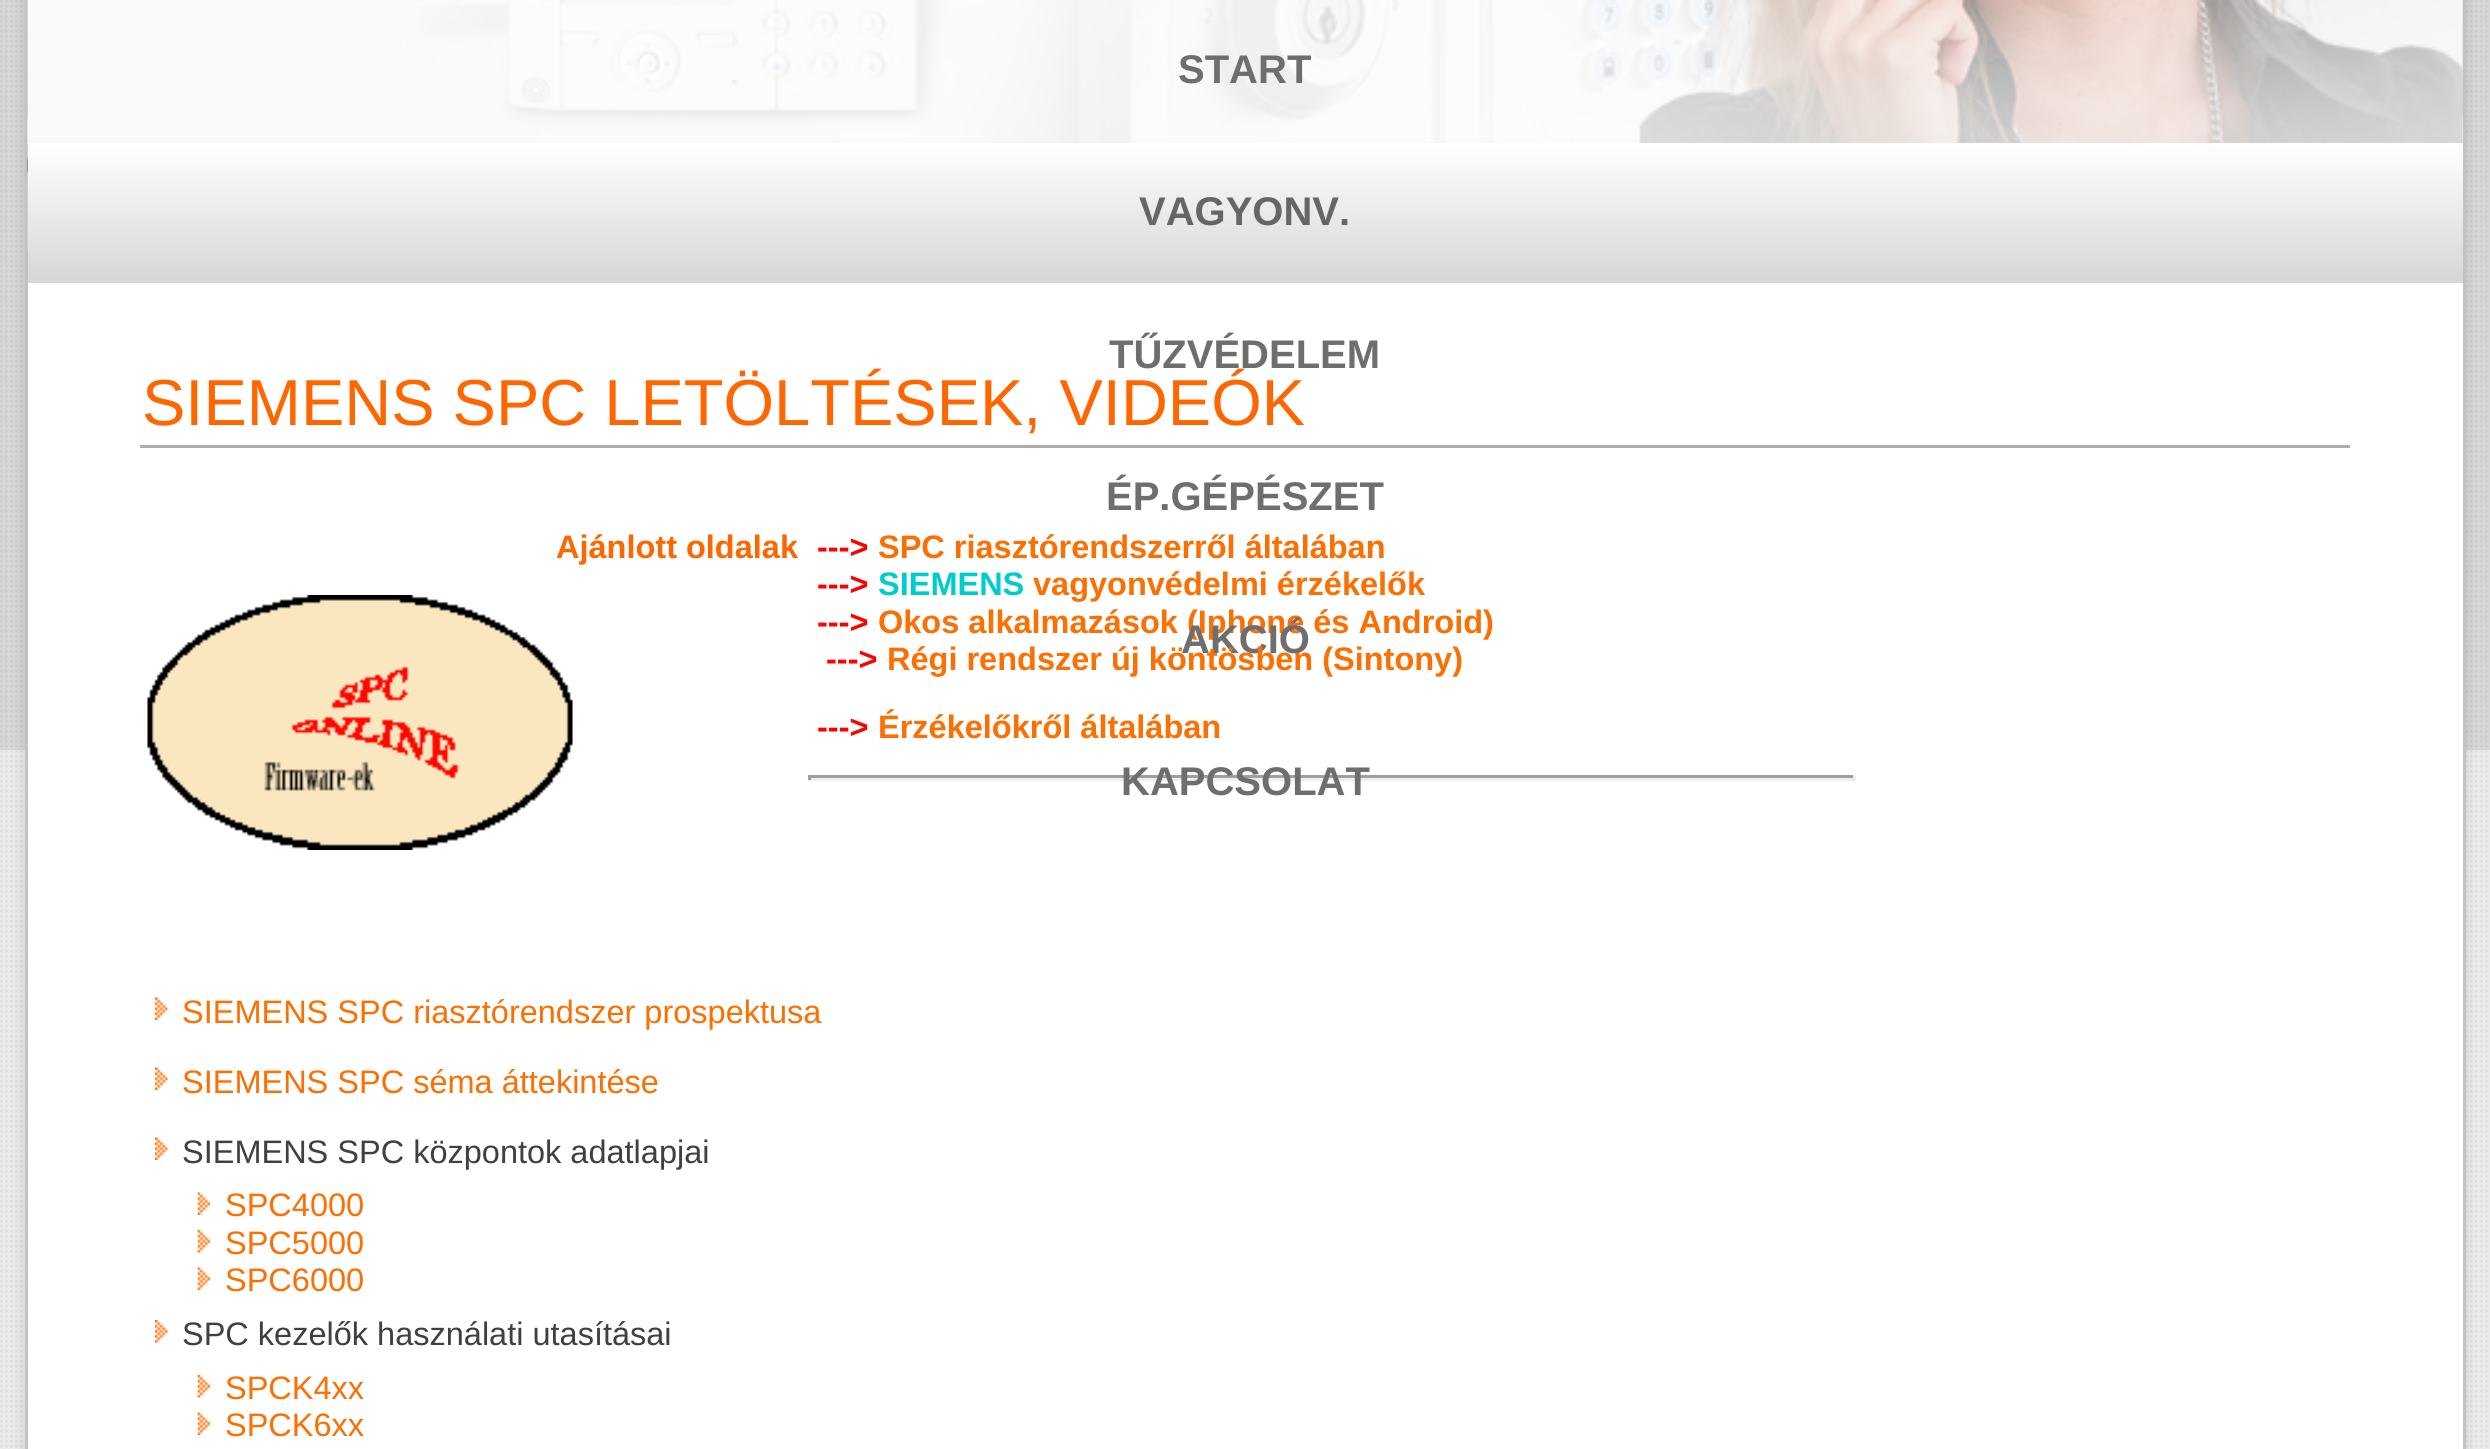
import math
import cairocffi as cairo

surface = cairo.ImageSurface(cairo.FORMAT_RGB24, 2490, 1449)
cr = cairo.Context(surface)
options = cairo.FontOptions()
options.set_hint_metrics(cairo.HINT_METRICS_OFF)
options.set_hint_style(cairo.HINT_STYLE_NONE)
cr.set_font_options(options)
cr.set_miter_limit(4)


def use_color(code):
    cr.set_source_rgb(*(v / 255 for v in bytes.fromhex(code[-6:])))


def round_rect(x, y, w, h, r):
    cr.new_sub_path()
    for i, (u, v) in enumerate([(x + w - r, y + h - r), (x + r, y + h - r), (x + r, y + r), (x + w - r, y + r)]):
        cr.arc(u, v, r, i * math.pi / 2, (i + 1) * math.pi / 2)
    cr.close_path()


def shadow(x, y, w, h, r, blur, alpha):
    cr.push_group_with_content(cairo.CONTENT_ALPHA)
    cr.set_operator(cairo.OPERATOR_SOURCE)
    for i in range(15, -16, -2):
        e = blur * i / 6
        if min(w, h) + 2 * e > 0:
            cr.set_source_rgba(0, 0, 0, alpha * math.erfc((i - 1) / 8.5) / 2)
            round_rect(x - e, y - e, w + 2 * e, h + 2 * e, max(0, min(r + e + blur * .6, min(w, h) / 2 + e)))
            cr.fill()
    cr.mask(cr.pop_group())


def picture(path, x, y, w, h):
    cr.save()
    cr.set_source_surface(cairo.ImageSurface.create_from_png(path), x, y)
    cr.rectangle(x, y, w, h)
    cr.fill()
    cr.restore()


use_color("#fafafa")
cr.paint()
picture("img1.png", 0, 0, 2490, 1449)
use_color("#000000")
shadow(20, -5, 2450, 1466, 0, 4, 0.07)
use_color("#ffffff")
cr.rectangle(28, 0, 2435, 1449)
cr.fill()
use_color("#c2c2c2")
cr.rectangle(2463, 0, 3, 1449)
cr.fill()
cr.rectangle(25, 0, 3, 1449)
cr.fill()
picture("img2.png", 27, 0, 2436, 250)
picture("img3.png", 27, 0, 2436, 145)
cr.select_font_face("Liberation Sans", cairo.FONT_SLANT_NORMAL, cairo.FONT_WEIGHT_BOLD)
cr.set_font_size(40)
use_color("#6e6e6e")
cr.move_to(1178, 83)
cr.show_text("START")
gradient = cairo.LinearGradient(1245, 142, 1245, 283)
gradient.add_color_stop_rgba(0, 1, 1, 1, 1)
gradient.add_color_stop_rgba(1, 0.839, 0.839, 0.839, 1)
cr.set_source(gradient)
cr.rectangle(28, 143, 2435, 140)
cr.fill()
use_color("#666666")
cr.move_to(1139, 225)
cr.show_text("VAGYONV.")
use_color("#6e6e6e")
cr.move_to(1109, 368)
cr.show_text("TŰZVÉDELEM")
cr.move_to(1106, 510)
cr.show_text("ÉP.GÉPÉSZET")
cr.set_font_size(32.5)
use_color("#fc6f03")
cr.move_to(878, 633)
cr.show_text("Okos alkalmazások (Iphone és Android)")
cr.set_font_size(40)
use_color("#6e6e6e")
cr.move_to(1181, 653)
cr.show_text("AKCIÓ")
use_color("#9f9f9f")
cr.rectangle(808, 775, 1047, 3)
cr.fill()
use_color("#eeeeee")
cr.rectangle(1853, 775, 3, 5)
cr.fill()
cr.rectangle(808, 778, 1047, 3)
cr.fill()
use_color("#6e6e6e")
cr.move_to(1121, 795)
cr.show_text("KAPCSOLAT")
use_color("#adadad")
cr.rectangle(140, 445, 2210, 3)
cr.fill()
cr.select_font_face("Liberation Sans")
cr.set_font_size(65)
use_color("#ff6600")
cr.move_to(142, 425)
cr.show_text("SIEMENS SPC LETÖLTÉSEK, VIDEÓK")
cr.select_font_face("Liberation Sans", cairo.FONT_SLANT_NORMAL, cairo.FONT_WEIGHT_BOLD)
cr.set_font_size(32.5)
cr.move_to(556, 558)
cr.show_text("Ajánlott oldalak")
picture("img4.png", 147, 595, 426, 255)
use_color("#ff0000")
cr.move_to(817, 558)
cr.show_text("--->")
use_color("#fc6f03")
cr.move_to(878, 558)
cr.show_text("SPC riasztórendszerről általában")
use_color("#ff0000")
cr.move_to(817, 595)
cr.show_text("--->")
use_color("#00cccc")
cr.move_to(878, 595)
cr.show_text("SIEMENS")
use_color("#fc6f03")
cr.move_to(1033, 595)
cr.show_text("vagyonvédelmi érzékelők")
use_color("#ff0000")
cr.move_to(817, 633)
cr.show_text("--->")
cr.move_to(826, 670)
cr.show_text("--->")
use_color("#fc6f03")
cr.move_to(887, 670)
cr.show_text("Régi rendszer új köntösben (Sintony)")
use_color("#ff0000")
cr.move_to(817, 738)
cr.show_text("--->")
use_color("#fc6f03")
cr.move_to(878, 738)
cr.show_text("Érzékelőkről általában")
use_color("#9f9f9f")
cr.rectangle(808, 775, 3, 5)
cr.fill()
picture("img5.png", 155, 997, 13, 23)
cr.select_font_face("Liberation Sans")
use_color("#fc6f03")
cr.move_to(182, 1023)
cr.show_text("SIEMENS SPC riasztórendszer prospektusa")
picture("img5.png", 155, 1067, 13, 23)
cr.move_to(182, 1093)
cr.show_text("SIEMENS SPC séma áttekintése")
picture("img5.png", 155, 1137, 13, 23)
use_color("#404040")
cr.move_to(182, 1163)
cr.show_text("SIEMENS SPC központok adatlapjai")
picture("img6.png", 197, 1192, 13, 23)
use_color("#fc6f03")
cr.move_to(225, 1216)
cr.show_text("SPC4000")
picture("img7.png", 197, 1230, 13, 23)
cr.move_to(225, 1254)
cr.show_text("SPC5000")
picture("img6.png", 197, 1267, 13, 23)
cr.move_to(225, 1291)
cr.show_text("SPC6000")
picture("img8.png", 155, 1320, 13, 23)
use_color("#404040")
cr.move_to(182, 1345)
cr.show_text("SPC kezelők használati utasításai")
picture("img7.png", 197, 1375, 13, 23)
use_color("#fc6f03")
cr.move_to(225, 1399)
cr.show_text("SPCK4xx")
picture("img6.png", 197, 1412, 13, 23)
cr.move_to(225, 1436)
cr.show_text("SPCK6xx")
surface.write_to_png("result.png")
